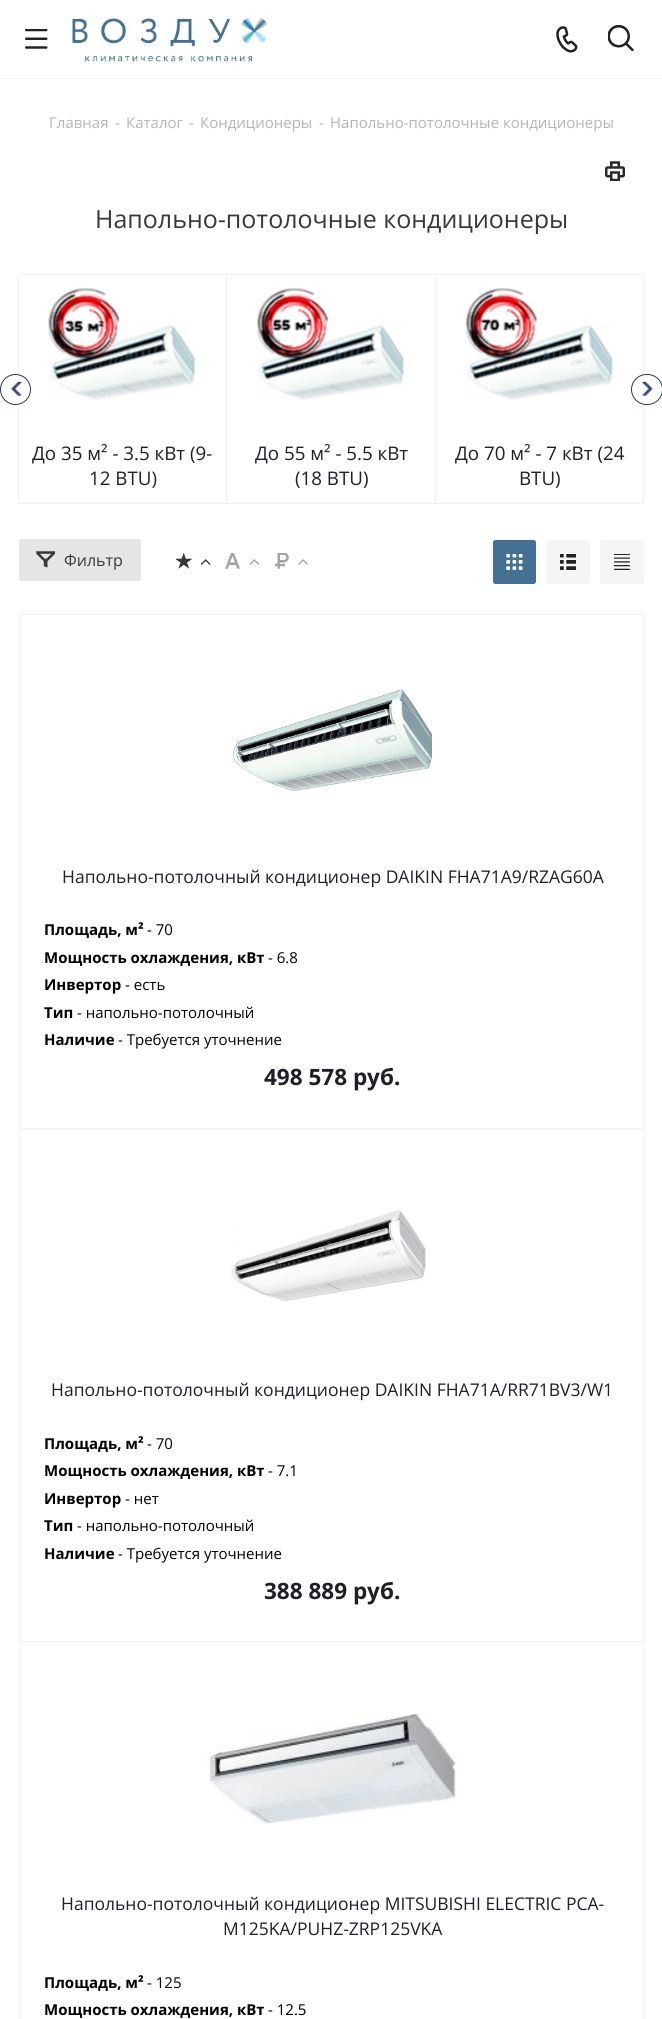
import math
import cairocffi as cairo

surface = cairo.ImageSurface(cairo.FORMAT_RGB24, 662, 2019)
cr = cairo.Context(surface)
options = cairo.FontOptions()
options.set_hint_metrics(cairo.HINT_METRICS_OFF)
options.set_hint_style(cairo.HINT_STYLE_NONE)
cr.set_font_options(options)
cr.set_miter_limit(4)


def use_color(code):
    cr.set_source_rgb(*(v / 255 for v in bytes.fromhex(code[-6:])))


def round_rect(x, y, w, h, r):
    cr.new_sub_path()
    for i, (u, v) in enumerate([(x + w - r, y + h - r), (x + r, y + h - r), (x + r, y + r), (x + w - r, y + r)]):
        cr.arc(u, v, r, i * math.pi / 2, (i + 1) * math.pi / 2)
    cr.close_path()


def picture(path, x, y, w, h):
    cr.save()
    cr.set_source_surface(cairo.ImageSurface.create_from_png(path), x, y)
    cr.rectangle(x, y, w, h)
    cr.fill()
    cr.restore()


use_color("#ffffff")
cr.paint()
use_color("#f5f5f5")
cr.rectangle(0, 78, 662, 1)
cr.fill()
picture("img1.png", 25, 29, 23, 20)
picture("img2.png", 72, 17, 196, 45)
picture("img3.png", 556, 26, 22, 27)
picture("img4.png", 608, 25, 26, 26)
cr.select_font_face("Open Sans")
cr.set_font_size(15)
use_color("#b6b5b5")
cr.move_to(49, 128)
cr.show_text("Главная")
cr.move_to(115, 128)
cr.show_text("-")
cr.move_to(126, 128)
cr.show_text("Каталог")
cr.move_to(189, 128)
cr.show_text("-")
cr.move_to(200, 128)
cr.show_text("Кондиционеры")
cr.move_to(319, 128)
cr.show_text("-")
cr.move_to(330, 128)
cr.show_text("Напольно-потолочные кондиционеры")
picture("img5.png", 605, 161, 20, 20)
cr.set_font_size(25)
use_color("#383838")
cr.move_to(95, 228)
cr.show_text("Напольно-потолочные кондиционеры")
use_color("#f2f2f2")
cr.rectangle(18, 274, 625, 1)
cr.fill()
cr.rectangle(18, 503, 625, 1)
cr.fill()
cr.rectangle(18, 274, 1, 230)
cr.fill()
use_color("#ffffff")
cr.arc(15.5, 389.5, 15.5, 0, 2 * math.pi)
cr.fill()
picture("img6.png", 11, 381, 11, 15)
cr.arc(15.5, 389.5, 15, 0, 2 * math.pi)
use_color("#2c3771")
cr.set_line_width(1)
cr.stroke()
use_color("#f2f2f2")
cr.rectangle(643, 274, 1, 230)
cr.fill()
use_color("#ffffff")
round_rect(631, 374, 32, 31, 15.5)
cr.fill()
picture("img7.png", 642, 381, 11, 15)
round_rect(631.5, 374.5, 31, 30, 15)
use_color("#2c3771")
cr.stroke()
picture("img8.png", 48, 288, 148, 112)
cr.set_font_size(18.75)
use_color("#1d2029")
cr.move_to(32, 460)
cr.show_text("До 35 м² - 3.5 кВт (9-")
cr.move_to(89, 485)
cr.show_text("12 BTU)")
use_color("#f2f2f2")
cr.rectangle(226, 274, 1, 230)
cr.fill()
picture("img9.png", 256, 288, 149, 112)
use_color("#1d2029")
cr.move_to(255, 460)
cr.show_text("До 55 м² - 5.5 кВт")
cr.move_to(295, 485)
cr.show_text("(18 BTU)")
use_color("#f2f2f2")
cr.rectangle(435, 274, 1, 230)
cr.fill()
picture("img10.png", 465, 288, 148, 112)
use_color("#1d2029")
cr.move_to(455, 460)
cr.show_text("До 70 м² - 7 кВт (24")
cr.move_to(519, 485)
cr.show_text("BTU)")
use_color("#e5e5e5")
round_rect(19, 539, 122, 42, 2.5)
cr.fill()
picture("img11.png", 36, 551, 19, 17)
cr.set_font_size(16)
use_color("#383838")
cr.move_to(64, 566)
cr.show_text("Фильтр")
picture("img12.png", 176, 553, 17, 16)
picture("img13.png", 200, 559, 11, 6)
picture("img14.png", 225, 553, 15, 16)
picture("img15.png", 249, 559, 11, 6)
picture("img16.png", 275, 553, 14, 16)
picture("img17.png", 298, 559, 10, 6)
use_color("#447093")
round_rect(493, 540, 43, 44, 2.5)
cr.fill()
picture("img18.png", 506, 554, 17, 16)
use_color("#f5f5f5")
round_rect(546, 540, 44, 44, 2.5)
cr.fill()
picture("img19.png", 560, 554, 16, 16)
round_rect(600, 540, 44, 44, 2.5)
cr.fill()
picture("img20.png", 614, 554, 16, 16)
cr.rectangle(19.5, 614.5, 625, 514)
use_color("#f2f2f2")
cr.stroke()
picture("img21.png", 233, 689, 199, 102)
cr.set_font_size(17.5)
use_color("#1d2029")
cr.move_to(62, 883)
cr.show_text("Напольно-потолочный кондиционер DAIKIN FHA71A9/RZAG60A")
cr.select_font_face("Open Sans", cairo.FONT_SLANT_NORMAL, cairo.FONT_WEIGHT_BOLD)
cr.set_font_size(15)
use_color("#000000")
cr.move_to(44, 935)
cr.show_text("Площадь, м²")
cr.select_font_face("Open Sans")
cr.move_to(147, 935)
cr.show_text("- 70")
cr.select_font_face("Open Sans", cairo.FONT_SLANT_NORMAL, cairo.FONT_WEIGHT_BOLD)
cr.move_to(44, 963)
cr.show_text("Мощность охлаждения, кВт")
cr.select_font_face("Open Sans")
cr.move_to(268, 963)
cr.show_text("- 6.8")
cr.select_font_face("Open Sans", cairo.FONT_SLANT_NORMAL, cairo.FONT_WEIGHT_BOLD)
cr.move_to(44, 990)
cr.show_text("Инвертор")
cr.select_font_face("Open Sans")
cr.move_to(125, 990)
cr.show_text("- есть")
cr.select_font_face("Open Sans", cairo.FONT_SLANT_NORMAL, cairo.FONT_WEIGHT_BOLD)
cr.move_to(44, 1018)
cr.show_text("Тип")
cr.select_font_face("Open Sans")
cr.move_to(77, 1018)
cr.show_text("- напольно-потолочный")
cr.select_font_face("Open Sans", cairo.FONT_SLANT_NORMAL, cairo.FONT_WEIGHT_BOLD)
cr.move_to(44, 1045)
cr.show_text("Наличие")
cr.select_font_face("Open Sans")
cr.move_to(118, 1045)
cr.show_text("- Требуется уточнение")
cr.select_font_face("Open Sans", cairo.FONT_SLANT_NORMAL, cairo.FONT_WEIGHT_BOLD)
cr.set_font_size(22.5)
use_color("#1d2029")
cr.move_to(264, 1085)
cr.show_text("498 578 руб.")
cr.rectangle(19.5, 1128.5, 625, 514)
use_color("#f2f2f2")
cr.stroke()
picture("img22.png", 231, 1210, 195, 91)
cr.select_font_face("Open Sans")
cr.set_font_size(17.5)
use_color("#1d2029")
cr.move_to(51, 1396)
cr.show_text("Напольно-потолочный кондиционер DAIKIN FHA71A/RR71BV3/W1")
cr.select_font_face("Open Sans", cairo.FONT_SLANT_NORMAL, cairo.FONT_WEIGHT_BOLD)
cr.set_font_size(15)
use_color("#000000")
cr.move_to(44, 1449)
cr.show_text("Площадь, м²")
cr.select_font_face("Open Sans")
cr.move_to(147, 1449)
cr.show_text("- 70")
cr.select_font_face("Open Sans", cairo.FONT_SLANT_NORMAL, cairo.FONT_WEIGHT_BOLD)
cr.move_to(44, 1476)
cr.show_text("Мощность охлаждения, кВт")
cr.select_font_face("Open Sans")
cr.move_to(268, 1476)
cr.show_text("- 7.1")
cr.select_font_face("Open Sans", cairo.FONT_SLANT_NORMAL, cairo.FONT_WEIGHT_BOLD)
cr.move_to(44, 1504)
cr.show_text("Инвертор")
cr.select_font_face("Open Sans")
cr.move_to(125, 1504)
cr.show_text("- нет")
cr.select_font_face("Open Sans", cairo.FONT_SLANT_NORMAL, cairo.FONT_WEIGHT_BOLD)
cr.move_to(44, 1531)
cr.show_text("Тип")
cr.select_font_face("Open Sans")
cr.move_to(77, 1531)
cr.show_text("- напольно-потолочный")
cr.select_font_face("Open Sans", cairo.FONT_SLANT_NORMAL, cairo.FONT_WEIGHT_BOLD)
cr.move_to(44, 1559)
cr.show_text("Наличие")
cr.select_font_face("Open Sans")
cr.move_to(118, 1559)
cr.show_text("- Требуется уточнение")
cr.select_font_face("Open Sans", cairo.FONT_SLANT_NORMAL, cairo.FONT_WEIGHT_BOLD)
cr.set_font_size(22.5)
use_color("#1d2029")
cr.move_to(264, 1599)
cr.show_text("388 889 руб.")
use_color("#ffffff")
cr.rectangle(20, 1642, 624, 1)
cr.fill()
cr.rectangle(19.5, 1641.5, 625, 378)
use_color("#f2f2f2")
cr.stroke()
picture("img23.png", 207, 1713, 251, 111)
cr.select_font_face("Open Sans")
cr.set_font_size(17.5)
use_color("#1d2029")
cr.move_to(61, 1910)
cr.show_text("Напольно-потолочный кондиционер MITSUBISHI ELECTRIC PCA-")
cr.move_to(223, 1935)
cr.show_text("M125KA/PUHZ-ZRP125VKA")
cr.select_font_face("Open Sans", cairo.FONT_SLANT_NORMAL, cairo.FONT_WEIGHT_BOLD)
cr.set_font_size(15)
use_color("#000000")
cr.move_to(44, 1988)
cr.show_text("Площадь, м²")
cr.select_font_face("Open Sans")
cr.move_to(147, 1988)
cr.show_text("- 125")
cr.select_font_face("Open Sans", cairo.FONT_SLANT_NORMAL, cairo.FONT_WEIGHT_BOLD)
cr.move_to(44, 2015)
cr.show_text("Мощность охлаждения, кВт")
cr.select_font_face("Open Sans")
cr.move_to(268, 2015)
cr.show_text("- 12.5")
surface.write_to_png("result.png")
